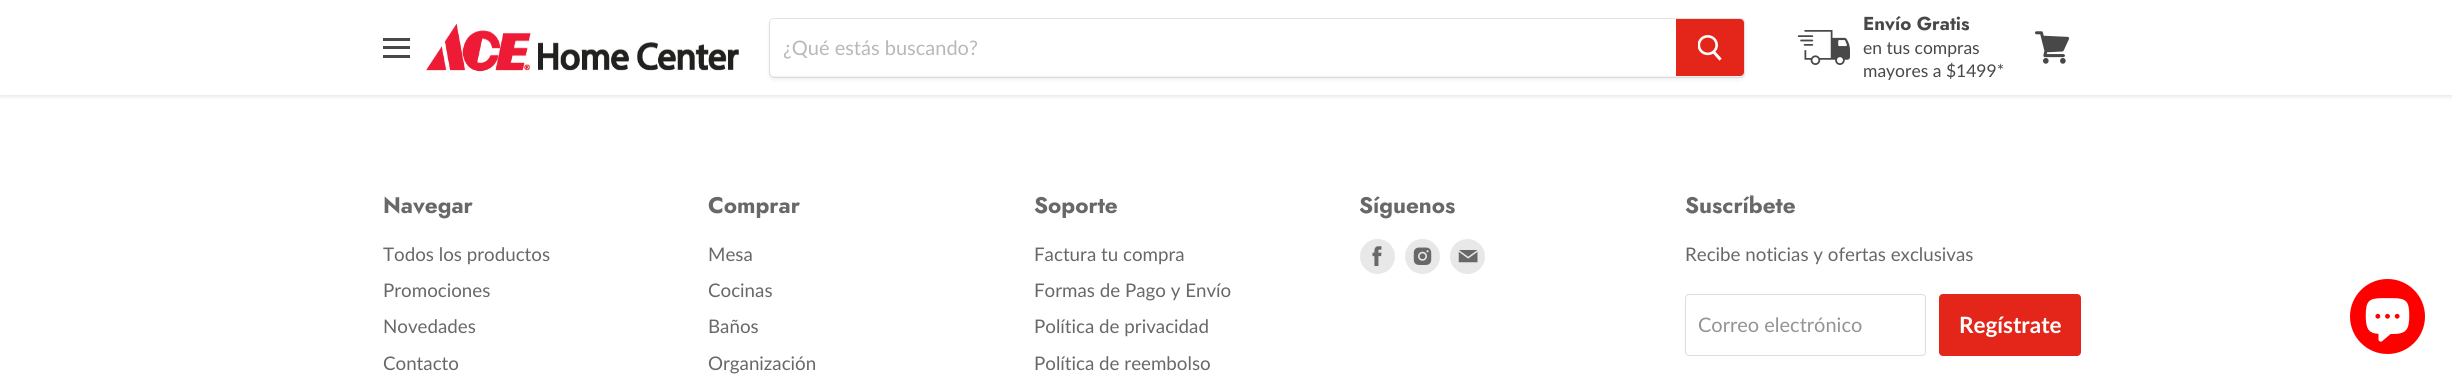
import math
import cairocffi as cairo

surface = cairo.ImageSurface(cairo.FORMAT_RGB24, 2452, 380)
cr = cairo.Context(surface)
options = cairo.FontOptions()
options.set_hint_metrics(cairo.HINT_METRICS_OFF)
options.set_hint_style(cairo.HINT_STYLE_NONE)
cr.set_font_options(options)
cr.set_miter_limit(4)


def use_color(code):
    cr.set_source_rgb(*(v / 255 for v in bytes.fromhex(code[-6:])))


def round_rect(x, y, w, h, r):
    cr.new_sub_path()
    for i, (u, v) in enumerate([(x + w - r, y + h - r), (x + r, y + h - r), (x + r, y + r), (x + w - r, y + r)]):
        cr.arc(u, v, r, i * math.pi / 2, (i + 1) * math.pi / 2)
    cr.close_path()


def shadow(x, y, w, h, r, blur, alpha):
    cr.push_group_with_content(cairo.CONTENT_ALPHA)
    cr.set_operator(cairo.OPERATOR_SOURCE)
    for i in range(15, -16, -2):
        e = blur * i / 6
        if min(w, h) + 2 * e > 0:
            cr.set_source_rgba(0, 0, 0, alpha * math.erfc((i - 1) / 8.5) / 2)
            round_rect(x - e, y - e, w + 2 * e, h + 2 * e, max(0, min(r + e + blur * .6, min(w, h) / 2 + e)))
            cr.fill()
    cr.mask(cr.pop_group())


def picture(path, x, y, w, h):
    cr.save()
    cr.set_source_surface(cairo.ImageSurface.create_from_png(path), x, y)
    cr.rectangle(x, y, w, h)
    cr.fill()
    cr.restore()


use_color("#ffffff")
cr.paint()
use_color("#808080")
shadow(0, 1, 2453, 95, 0, 2.5, 0.25)
use_color("#ffffff")
cr.rectangle(0, 0, 2452, 95)
cr.fill()
use_color("#484848")
cr.rectangle(383, 38, 27, 3)
cr.fill()
cr.rectangle(383, 46, 27, 3)
cr.fill()
cr.rectangle(383, 55, 27, 3)
cr.fill()
picture("img1.png", 426, 24, 313, 48)
use_color("#808080")
shadow(769, 20, 976, 60, 5, 2, 0.11)
round_rect(769.5, 18.5, 975, 59, 4.5)
cr.set_source_rgba(0.502, 0.502, 0.502, 0.2)
cr.set_line_width(1)
cr.stroke()
use_color("#ffffff")
cr.new_path()
cr.move_to(774, 19)
cr.line_to(1676, 19)
cr.line_to(1676, 76)
cr.line_to(774, 76)
cr.curve_to(772, 76, 770, 74, 770, 72)
cr.line_to(770, 23)
cr.curve_to(770, 21, 772, 19, 774, 19)
cr.close_path()
cr.fill()
cr.select_font_face("Lato")
cr.set_font_size(20)
use_color("#b8b8b8")
cr.move_to(783, 55)
cr.show_text("¿Qué estás buscando?")
use_color("#e32619")
cr.new_path()
cr.move_to(1676.5, 19.5)
cr.line_to(1740, 19.5)
cr.curve_to(1742, 19.5, 1743.5, 21, 1743.5, 23)
cr.line_to(1743.5, 72)
cr.curve_to(1743.5, 74, 1742, 75.5, 1740, 75.5)
cr.line_to(1676.5, 75.5)
cr.close_path()
cr.fill_preserve()
cr.stroke()
picture("img2.png", 1698, 35, 24, 26)
picture("img3.png", 1798, 30, 52, 35)
cr.select_font_face("Jost", cairo.FONT_SLANT_NORMAL, cairo.FONT_WEIGHT_BOLD)
cr.set_font_size(18.75)
use_color("#484848")
cr.move_to(1863, 30)
cr.show_text("Envío Gratis")
cr.select_font_face("Lato")
cr.set_font_size(17.5)
cr.move_to(1863, 54)
cr.show_text("en tus compras")
cr.move_to(1863, 77)
cr.show_text("mayores a $1499*")
picture("img4.png", 2035, 31, 35, 33)
cr.select_font_face("Jost", cairo.FONT_SLANT_NORMAL, cairo.FONT_WEIGHT_BOLD)
cr.set_font_size(22.5)
use_color("#686868")
cr.move_to(383, 213)
cr.show_text("Navegar")
cr.select_font_face("Lato")
cr.set_font_size(18.75)
cr.move_to(383, 261)
cr.show_text("Todos los productos")
cr.move_to(383, 297)
cr.show_text("Promociones")
cr.move_to(383, 333)
cr.show_text("Novedades")
cr.move_to(383, 370)
cr.show_text("Contacto")
cr.select_font_face("Jost", cairo.FONT_SLANT_NORMAL, cairo.FONT_WEIGHT_BOLD)
cr.set_font_size(22.5)
cr.move_to(708, 213)
cr.show_text("Comprar")
cr.select_font_face("Lato")
cr.set_font_size(18.75)
cr.move_to(708, 261)
cr.show_text("Mesa")
cr.move_to(708, 297)
cr.show_text("Cocinas")
cr.move_to(708, 333)
cr.show_text("Baños")
cr.move_to(708, 370)
cr.show_text("Organización")
cr.select_font_face("Jost", cairo.FONT_SLANT_NORMAL, cairo.FONT_WEIGHT_BOLD)
cr.set_font_size(22.5)
cr.move_to(1034, 213)
cr.show_text("Soporte")
cr.select_font_face("Lato")
cr.set_font_size(18.75)
cr.move_to(1034, 261)
cr.show_text("Factura tu compra")
cr.move_to(1034, 297)
cr.show_text("Formas de Pago y Envío")
cr.move_to(1034, 333)
cr.show_text("Política de privacidad")
cr.move_to(1034, 370)
cr.show_text("Política de reembolso")
cr.select_font_face("Jost", cairo.FONT_SLANT_NORMAL, cairo.FONT_WEIGHT_BOLD)
cr.set_font_size(22.5)
cr.move_to(1359, 213)
cr.show_text("Síguenos")
use_color("#e8e8e8")
cr.new_path()
cr.arc(1377.5, 256.5, 17.5, 0, 2 * math.pi)
cr.fill()
picture("img5.png", 1372, 246, 10, 20)
cr.arc(1422.5, 256.5, 17.5, 0, 2 * math.pi)
cr.fill()
picture("img6.png", 1413, 247, 19, 18)
cr.arc(1467.5, 256.5, 17.5, 0, 2 * math.pi)
cr.fill()
picture("img7.png", 1458, 250, 20, 13)
use_color("#686868")
cr.move_to(1685, 213)
cr.show_text("Suscríbete")
cr.select_font_face("Lato")
cr.set_font_size(18.75)
cr.move_to(1685, 261)
cr.show_text("Recibe noticias y ofertas exclusivas")
round_rect(1685.5, 294.5, 240, 61, 3.5)
use_color("#dddddd")
cr.stroke()
cr.set_font_size(20)
use_color("#949494")
cr.move_to(1698, 332)
cr.show_text("Correo electrónico")
use_color("#e32619")
round_rect(1939.5, 294.5, 141, 61, 3.5)
cr.fill_preserve()
cr.stroke()
cr.select_font_face("Lato", cairo.FONT_SLANT_NORMAL, cairo.FONT_WEIGHT_BOLD)
cr.set_font_size(22.5)
use_color("#ffffff")
cr.move_to(1959, 333)
cr.show_text("Regístrate")
use_color("#ff0000")
cr.new_path()
cr.arc(2387.5, 316.5, 37.5, 0, 2 * math.pi)
cr.fill()
picture("img8.png", 2365, 298, 45, 44)
surface.write_to_png("result.png")
